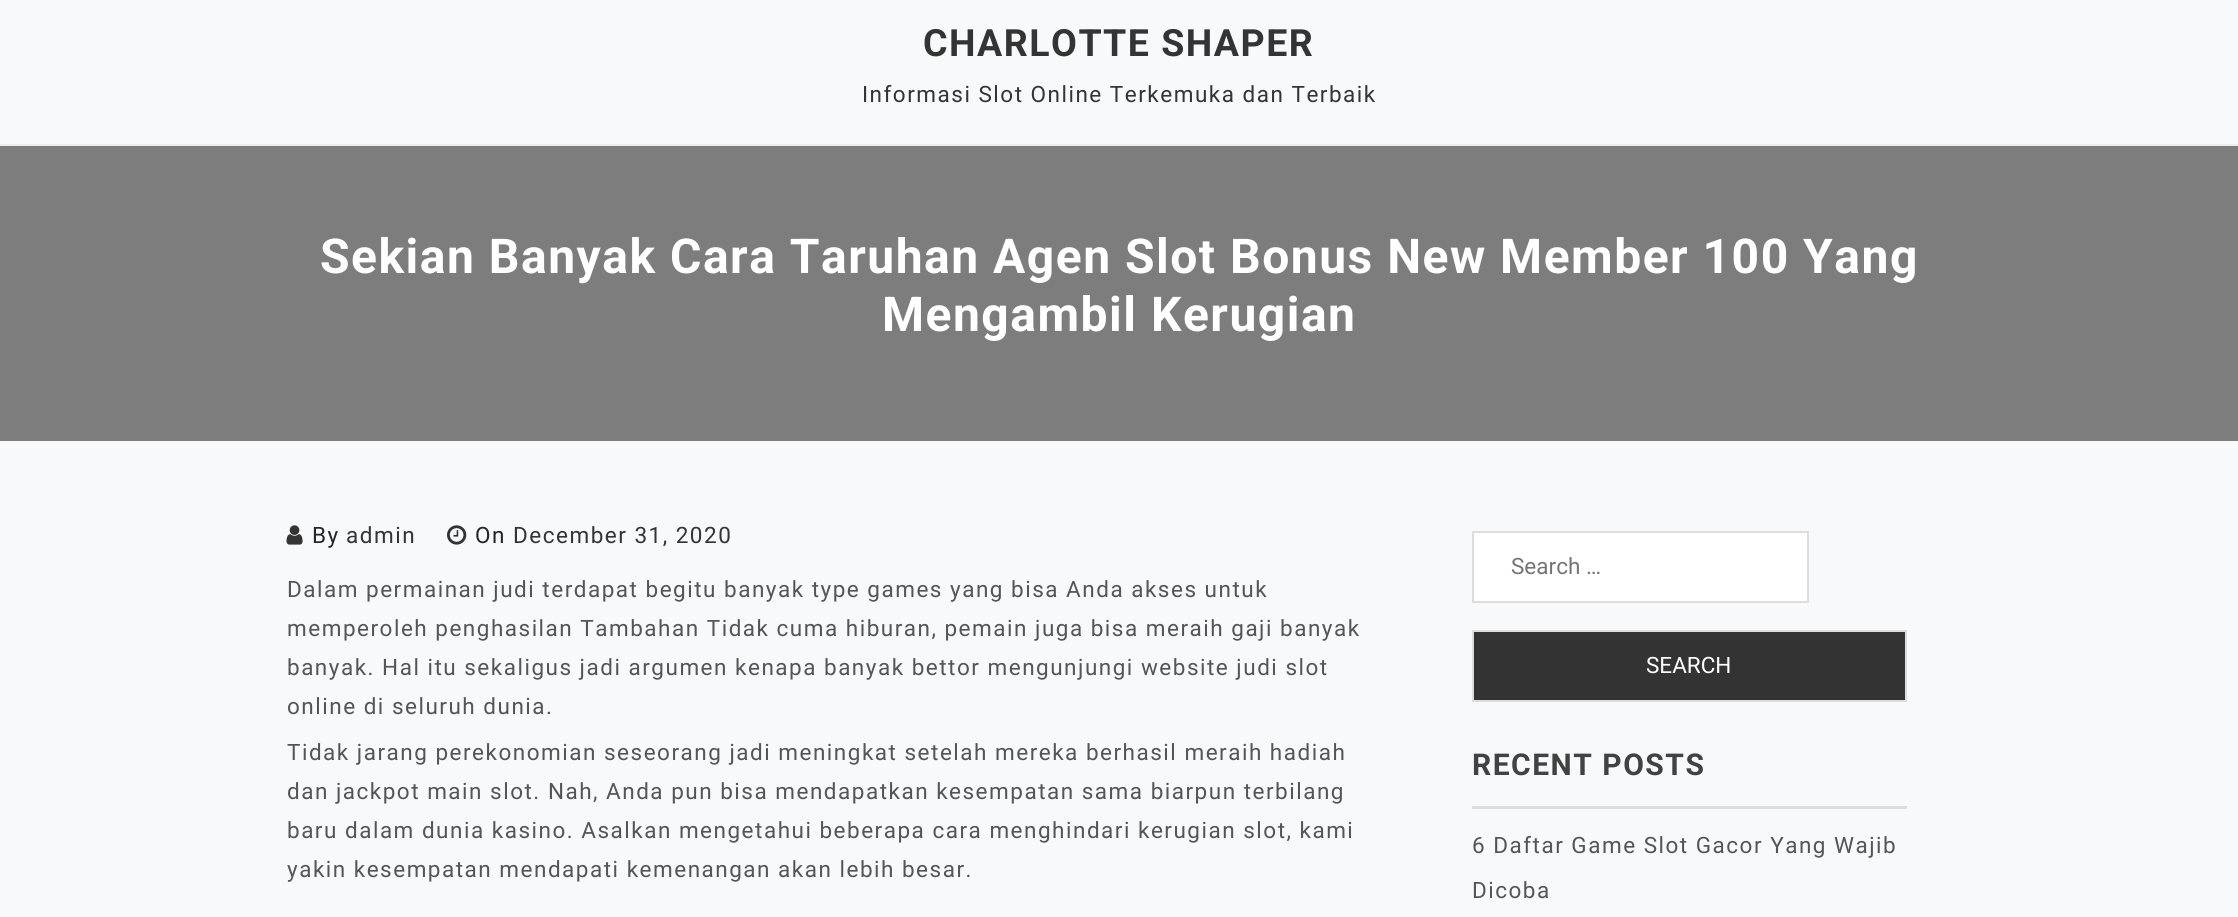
import math
import cairocffi as cairo

surface = cairo.ImageSurface(cairo.FORMAT_RGB24, 2238, 917)
cr = cairo.Context(surface)
options = cairo.FontOptions()
options.set_hint_metrics(cairo.HINT_METRICS_OFF)
options.set_hint_style(cairo.HINT_STYLE_NONE)
cr.set_font_options(options)
cr.set_miter_limit(4)


def use_color(code):
    cr.set_source_rgb(*(v / 255 for v in bytes.fromhex(code[-6:])))


def spaced_text(x, y, s, letter, word):
    cr.move_to(x, y)
    for ch in s:
        cr.show_text(ch)
        cr.rel_move_to(letter + word * (ch == ' '), 0)


def picture(path, x, y, w, h):
    cr.save()
    cr.set_source_surface(cairo.ImageSurface.create_from_png(path), x, y)
    cr.rectangle(x, y, w, h)
    cr.fill()
    cr.restore()


use_color("#f8f9fa")
cr.paint()
use_color("#eeeeee")
cr.rectangle(0, 144, 2238, 2)
cr.fill()
cr.select_font_face("Roboto", cairo.FONT_SLANT_NORMAL, cairo.FONT_WEIGHT_BOLD)
cr.set_font_size(37.5)
use_color("#343434")
spaced_text(923, 56, "CHARLOTTE SHAPER", 1.5, 0)
cr.select_font_face("Roboto")
cr.set_font_size(22.5)
spaced_text(862, 102, "Informasi Slot Online Terkemuka dan Terbaik", 1.5, 0)
use_color("#7d7d7d")
cr.rectangle(0, 146, 2238, 295)
cr.fill()
cr.select_font_face("Roboto", cairo.FONT_SLANT_NORMAL, cairo.FONT_WEIGHT_BOLD)
cr.set_font_size(48)
use_color("#ffffff")
spaced_text(320, 273, "Sekian Banyak Cara Taruhan Agen Slot Bonus New Member 100 Yang", 1.5, 0)
spaced_text(882, 331, "Mengambil Kerugian", 1.5, 0)
picture("img1.png", 286, 525, 17, 20)
cr.select_font_face("Roboto")
cr.set_font_size(22.5)
use_color("#252525")
spaced_text(312, 543, "By", 1.5, 0)
use_color("#343434")
spaced_text(346, 543, "admin", 1.5, 0)
picture("img2.png", 447, 525, 20, 20)
use_color("#252525")
spaced_text(475, 543, "On", 1.5, 0)
use_color("#343434")
spaced_text(513, 543, "December 31, 2020", 1.5, 0)
use_color("#555555")
spaced_text(287, 597, "Dalam permainan judi terdapat begitu banyak type games yang bisa Anda akses untuk", 1.5, 0)
spaced_text(287, 636, "memperoleh penghasilan Tambahan Tidak cuma hiburan, pemain juga bisa meraih gaji banyak", 1.5, 0)
spaced_text(287, 675, "banyak. Hal itu sekaligus jadi argumen kenapa banyak bettor mengunjungi website judi slot", 1.5, 0)
spaced_text(287, 714, "online di seluruh dunia.", 1.5, 0)
spaced_text(287, 760, "Tidak jarang perekonomian seseorang jadi meningkat setelah mereka berhasil meraih hadiah", 1.5, 0)
spaced_text(287, 799, "dan jackpot main slot. Nah, Anda pun bisa mendapatkan kesempatan sama biarpun terbilang", 1.5, 0)
spaced_text(287, 838, "baru dalam dunia kasino. Asalkan mengetahui beberapa cara menghindari kerugian slot, kami", 1.5, 0)
spaced_text(287, 877, "yakin kesempatan mendapati kemenangan akan lebih besar.", 1.5, 0)
use_color("#ffffff")
cr.rectangle(1473, 532, 335, 70)
cr.fill_preserve()
use_color("#dddddd")
cr.stroke()
use_color("#757575")
cr.move_to(1511, 574)
cr.show_text("Search …")
use_color("#333333")
cr.rectangle(1473, 631, 433, 70)
cr.fill_preserve()
use_color("#dddddd")
cr.stroke()
use_color("#ffffff")
cr.move_to(1646, 673)
cr.show_text("SEARCH")
use_color("#dddddd")
cr.rectangle(1472, 806, 435, 3)
cr.fill()
cr.select_font_face("Roboto", cairo.FONT_SLANT_NORMAL, cairo.FONT_WEIGHT_BOLD)
cr.set_font_size(30)
use_color("#424242")
spaced_text(1472, 775, "RECENT POSTS", 1.5, 0)
cr.select_font_face("Roboto")
cr.set_font_size(22.5)
use_color("#555555")
spaced_text(1472, 853, "6 Daftar Game Slot Gacor Yang Wajib", 1.5, 0)
spaced_text(1472, 898, "Dicoba", 1.5, 0)
surface.write_to_png("result.png")
